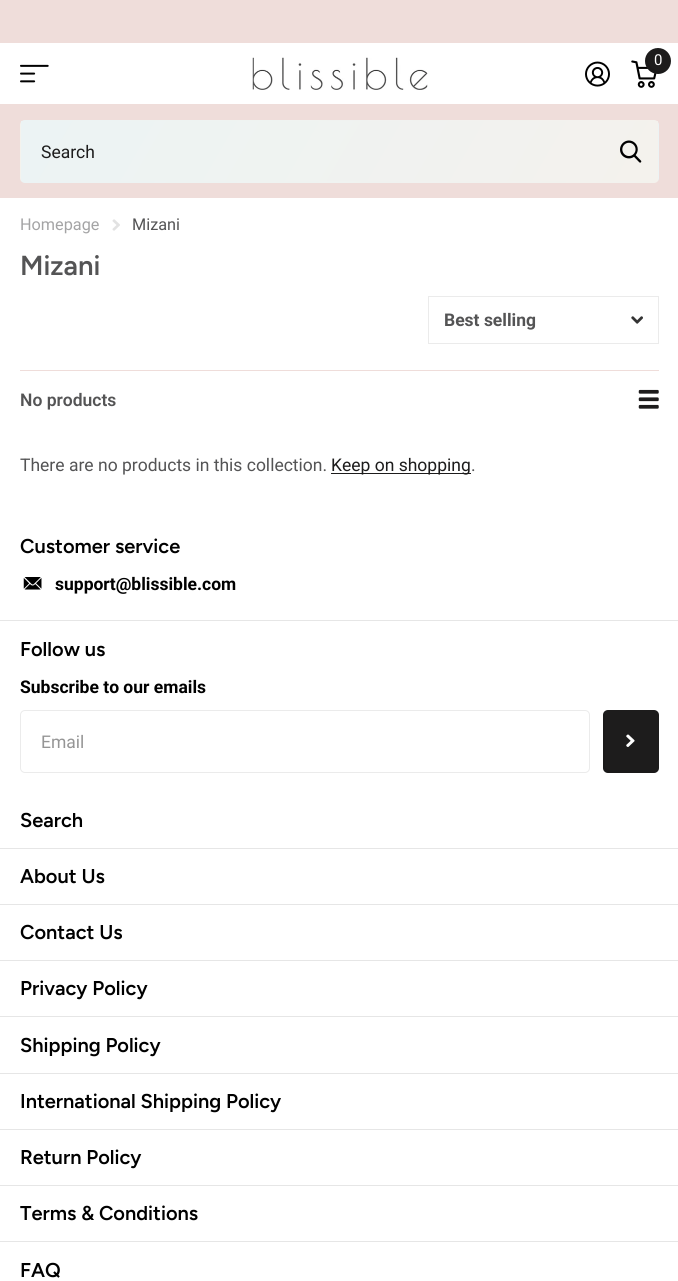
import math
import cairocffi as cairo

surface = cairo.ImageSurface(cairo.FORMAT_RGB24, 678, 1281)
cr = cairo.Context(surface)
options = cairo.FontOptions()
options.set_hint_metrics(cairo.HINT_METRICS_OFF)
options.set_hint_style(cairo.HINT_STYLE_NONE)
cr.set_font_options(options)
cr.set_miter_limit(4)


def use_color(code):
    cr.set_source_rgb(*(v / 255 for v in bytes.fromhex(code[-6:])))


def round_rect(x, y, w, h, r):
    cr.new_sub_path()
    for i, (u, v) in enumerate([(x + w - r, y + h - r), (x + r, y + h - r), (x + r, y + r), (x + w - r, y + r)]):
        cr.arc(u, v, r, i * math.pi / 2, (i + 1) * math.pi / 2)
    cr.close_path()


def picture(path, x, y, w, h):
    cr.save()
    cr.set_source_surface(cairo.ImageSurface.create_from_png(path), x, y)
    cr.rectangle(x, y, w, h)
    cr.fill()
    cr.restore()


use_color("#ffffff")
cr.paint()
use_color("#efddda")
cr.rectangle(0, 0, 678, 43)
cr.fill()
picture("img1.png", 20, 64, 29, 19)
picture("img2.png", 252, 57, 176, 33)
picture("img3.png", 585, 61, 25, 26)
picture("img4.png", 631, 60, 26, 28)
use_color("#1d1c1c")
cr.arc(658, 61, 13, 0, 2 * math.pi)
cr.fill()
cr.set_source_rgba(0, 0, 0, 0.1)
cr.new_path()
cr.move_to(668.5, 69)
cr.curve_to(657.5, 76.5, 642, 64, 649, 51.5)
cr.curve_to(644, 56.5, 643.5, 65, 649, 70)
cr.curve_to(654.5, 75.5, 663.5, 75, 668.5, 69)
cr.close_path()
cr.fill()
cr.select_font_face("Roboto")
cr.set_font_size(15)
use_color("#ffffff")
cr.move_to(654, 65)
cr.show_text("0")
use_color("#efddda")
cr.rectangle(0, 104, 678, 94)
cr.fill()
cr.save()
round_rect(20, 120, 639, 63, 5)
cr.clip()
gradient = cairo.LinearGradient(88, -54, 591, 237)
gradient.add_color_stop_rgba(0, 0.925, 0.953, 0.957, 1)
gradient.add_color_stop_rgba(1, 0.957, 0.949, 0.929, 1)
cr.set_source(gradient)
cr.rectangle(21, 120, 637, 1)
cr.fill()
gradient = cairo.LinearGradient(-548, 6, -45, 297)
gradient.add_color_stop_rgba(0, 0.925, 0.953, 0.957, 1)
gradient.add_color_stop_rgba(1, 0.957, 0.949, 0.929, 1)
cr.set_source(gradient)
cr.rectangle(20, 121, 1, 60)
cr.fill()
cr.restore()
gradient = cairo.LinearGradient(88, 6, 591, 297)
gradient.add_color_stop_rgba(0, 0.925, 0.953, 0.957, 1)
gradient.add_color_stop_rgba(1, 0.957, 0.949, 0.929, 1)
cr.set_source(gradient)
cr.rectangle(21, 121, 637, 60)
cr.fill()
cr.save()
round_rect(20, 120, 639, 63, 5)
cr.clip()
gradient = cairo.LinearGradient(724, 6, 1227, 297)
gradient.add_color_stop_rgba(0, 0.925, 0.953, 0.957, 1)
gradient.add_color_stop_rgba(1, 0.957, 0.949, 0.929, 1)
cr.set_source(gradient)
cr.rectangle(658, 121, 1, 60)
cr.fill()
gradient = cairo.LinearGradient(88, 66, 591, 357)
gradient.add_color_stop_rgba(0, 0.925, 0.953, 0.957, 1)
gradient.add_color_stop_rgba(1, 0.957, 0.949, 0.929, 1)
cr.set_source(gradient)
cr.rectangle(21, 181, 637, 2)
cr.fill()
cr.restore()
cr.set_font_size(17.5)
use_color("#1d1c1c")
cr.move_to(41, 158)
cr.show_text("Search")
picture("img5.png", 620, 140, 22, 23)
cr.set_font_size(16.25)
use_color("#a4a4a5")
cr.move_to(20, 230)
cr.show_text("Homepage")
picture("img6.png", 112, 219, 8, 12)
use_color("#545455")
cr.move_to(132, 230)
cr.show_text("Mizani")
cr.select_font_face("Figtree SemiBold")
cr.set_font_size(27.5)
cr.move_to(20, 275)
cr.show_text("Mizani")
picture("img7.png", 631, 316, 12, 8)
cr.rectangle(428.5, 296.5, 230, 47)
use_color("#ebebeb")
cr.set_line_width(1)
cr.stroke()
cr.select_font_face("Roboto", cairo.FONT_SLANT_NORMAL, cairo.FONT_WEIGHT_BOLD)
cr.set_font_size(17.5)
use_color("#545455")
cr.move_to(444, 326)
cr.show_text("Best selling")
use_color("#efddda")
cr.rectangle(20, 370, 639, 1)
cr.fill()
cr.select_font_face("Roboto SemiBold")
use_color("#545455")
cr.move_to(20, 406)
cr.show_text("No products")
picture("img8.png", 638, 389, 21, 20)
cr.select_font_face("Roboto")
cr.move_to(20, 471)
cr.show_text("There are no products in this collection.")
use_color("#1d1c1c")
cr.rectangle(331, 473, 140, 1)
cr.fill()
cr.move_to(331, 471)
cr.show_text("Keep on shopping")
use_color("#545455")
cr.move_to(471, 471)
cr.show_text(".")
cr.select_font_face("Figtree SemiBold")
cr.set_font_size(20)
use_color("#000000")
cr.move_to(20, 553)
cr.show_text("Customer service")
picture("img9.png", 23, 577, 19, 13)
cr.select_font_face("Roboto", cairo.FONT_SLANT_NORMAL, cairo.FONT_WEIGHT_BOLD)
cr.set_font_size(17.5)
cr.move_to(55, 590)
cr.show_text("support@blissible.com")
use_color("#e6e6e6")
cr.rectangle(0, 620, 678, 1)
cr.fill()
cr.select_font_face("Figtree SemiBold")
cr.set_font_size(20)
use_color("#000000")
cr.move_to(20, 656)
cr.show_text("Follow us")
cr.select_font_face("Roboto", cairo.FONT_SLANT_NORMAL, cairo.FONT_WEIGHT_BOLD)
cr.set_font_size(17.5)
cr.move_to(20, 693)
cr.show_text("Subscribe to our emails")
round_rect(20.5, 710.5, 569, 62, 4.5)
use_color("#ebebeb")
cr.stroke()
cr.select_font_face("Roboto")
use_color("#959595")
cr.move_to(41, 748)
cr.show_text("Email")
use_color("#1d1c1c")
round_rect(603, 710, 56, 63, 5)
cr.fill()
cr.set_source_rgba(0, 0, 0, 0.1)
cr.new_path()
cr.move_to(605, 711)
cr.curve_to(604, 712, 603, 713, 603, 715)
cr.line_to(603, 768)
cr.curve_to(603, 771, 605, 773, 608, 773)
cr.line_to(654, 773)
cr.curve_to(656, 773, 658, 771, 659, 769)
cr.curve_to(656, 771, 650, 770, 648, 770)
cr.line_to(618, 770)
cr.curve_to(614, 770, 605, 772, 605, 765)
cr.close_path()
cr.fill()
picture("img10.png", 626, 734, 9, 13)
cr.select_font_face("Figtree SemiBold")
cr.set_font_size(20)
use_color("#000000")
cr.move_to(20, 827)
cr.show_text("Search")
use_color("#e6e6e6")
cr.rectangle(0, 848, 678, 1)
cr.fill()
use_color("#000000")
cr.move_to(20, 883)
cr.show_text("About Us")
use_color("#e6e6e6")
cr.rectangle(0, 904, 678, 1)
cr.fill()
use_color("#000000")
cr.move_to(20, 939)
cr.show_text("Contact Us")
use_color("#e6e6e6")
cr.rectangle(0, 960, 678, 1)
cr.fill()
use_color("#000000")
cr.move_to(20, 995)
cr.show_text("Privacy Policy")
use_color("#e6e6e6")
cr.rectangle(0, 1016, 678, 1)
cr.fill()
use_color("#000000")
cr.move_to(20, 1052)
cr.show_text("Shipping Policy")
use_color("#e6e6e6")
cr.rectangle(0, 1073, 678, 1)
cr.fill()
use_color("#000000")
cr.move_to(20, 1108)
cr.show_text("International Shipping Policy")
use_color("#e6e6e6")
cr.rectangle(0, 1129, 678, 1)
cr.fill()
use_color("#000000")
cr.move_to(20, 1164)
cr.show_text("Return Policy")
use_color("#e6e6e6")
cr.rectangle(0, 1185, 678, 1)
cr.fill()
use_color("#000000")
cr.move_to(20, 1220)
cr.show_text("Terms & Conditions")
use_color("#e6e6e6")
cr.rectangle(0, 1241, 678, 1)
cr.fill()
use_color("#000000")
cr.move_to(20, 1277)
cr.show_text("FAQ")
surface.write_to_png("result.png")
